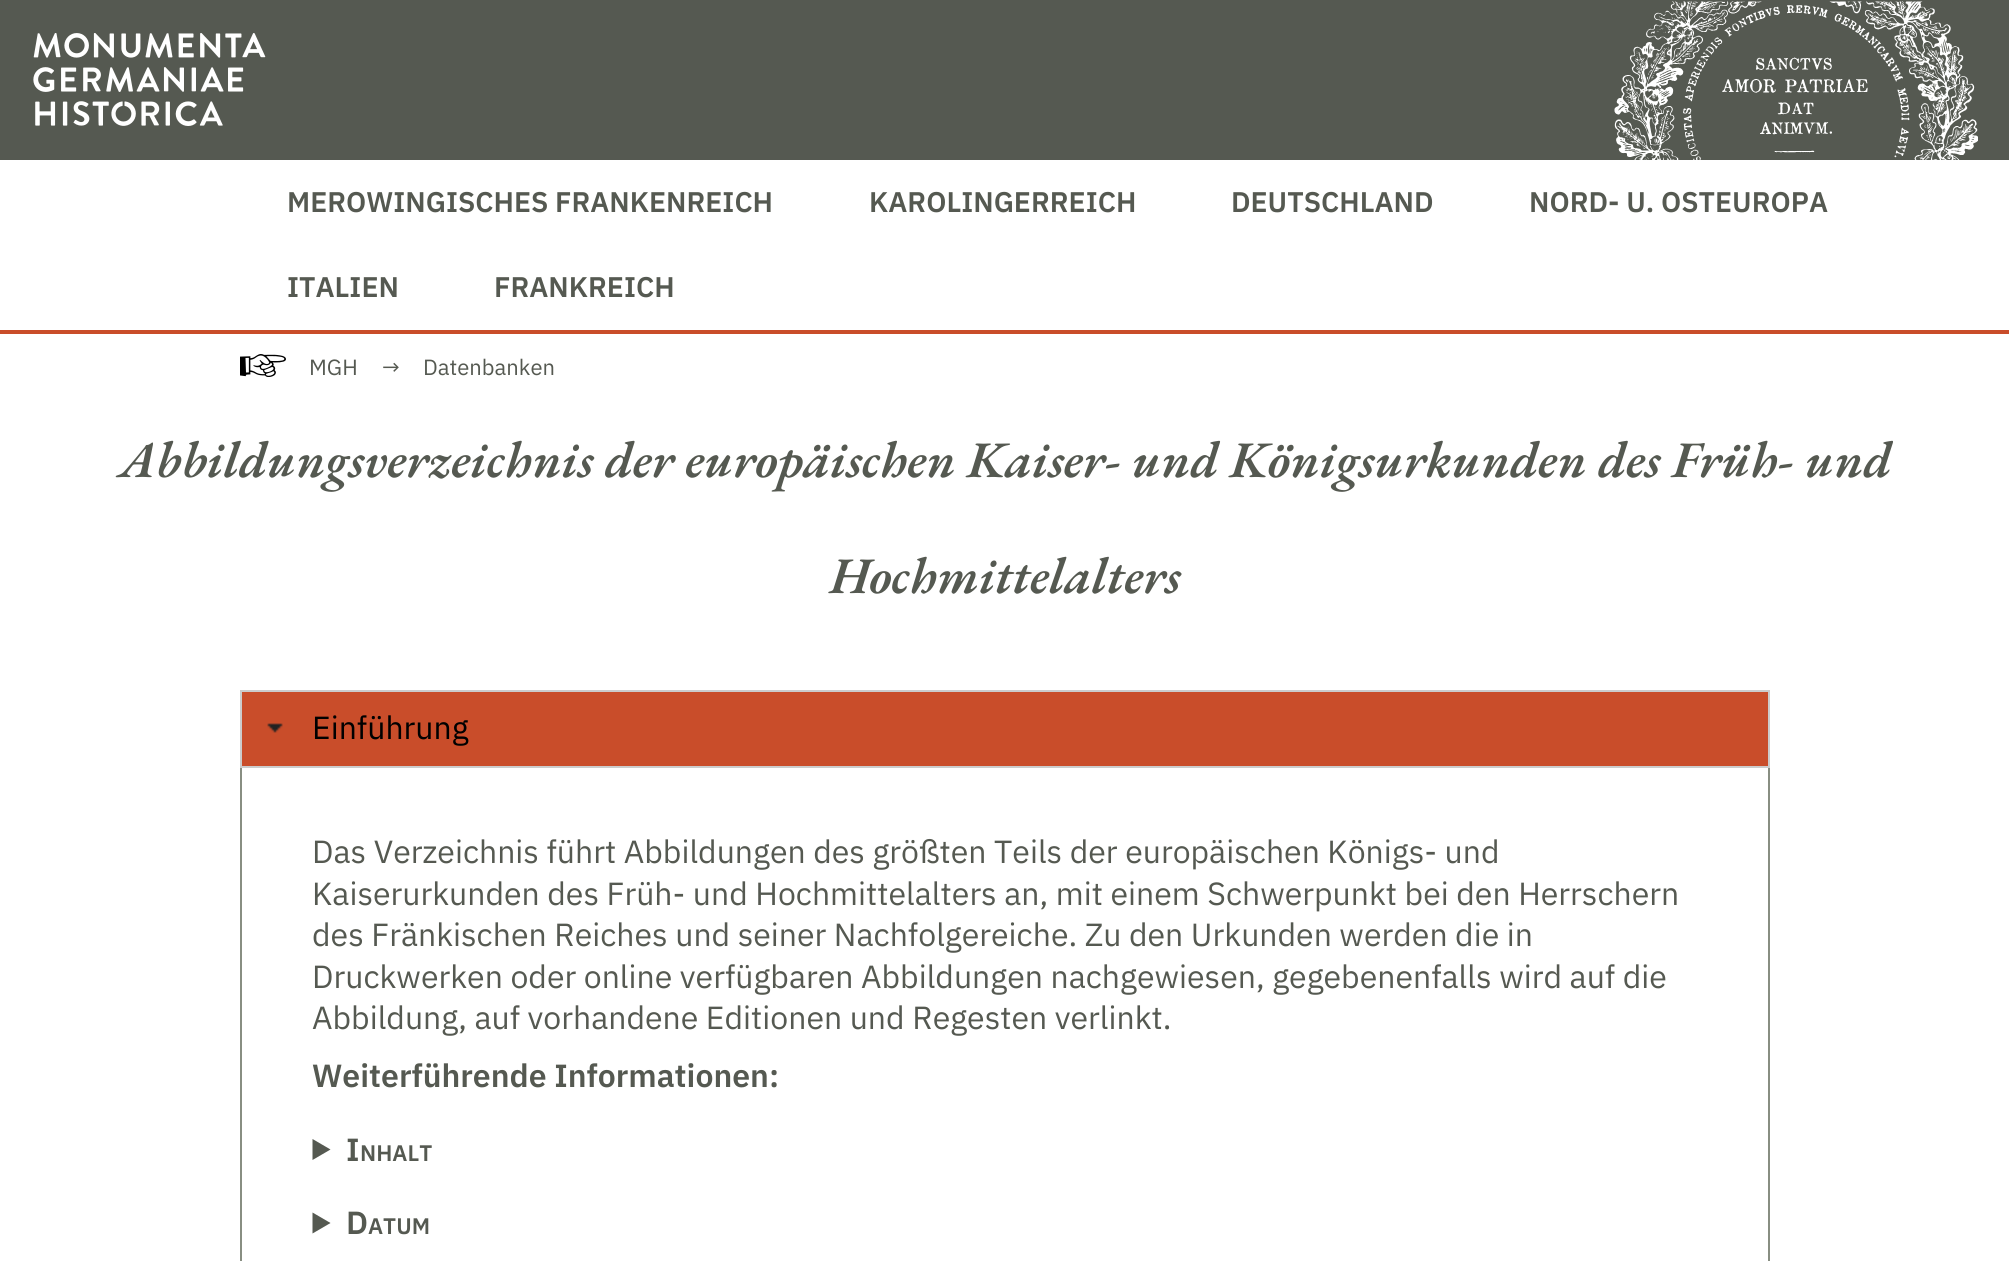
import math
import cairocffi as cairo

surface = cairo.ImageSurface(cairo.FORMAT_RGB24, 2009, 1261)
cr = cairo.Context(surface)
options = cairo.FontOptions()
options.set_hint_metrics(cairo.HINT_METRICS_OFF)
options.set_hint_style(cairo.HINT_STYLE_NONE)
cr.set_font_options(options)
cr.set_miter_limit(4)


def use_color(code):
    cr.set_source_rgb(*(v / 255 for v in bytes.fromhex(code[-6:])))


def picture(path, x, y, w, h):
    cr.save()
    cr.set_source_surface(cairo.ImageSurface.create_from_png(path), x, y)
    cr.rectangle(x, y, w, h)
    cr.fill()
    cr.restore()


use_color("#ffffff")
cr.paint()
use_color("#555951")
cr.rectangle(0, 0, 2009, 160)
cr.fill()
picture("img1.png", 33, 33, 233, 93)
picture("img2.png", 1614, 1, 364, 159)
use_color("#c94d2a")
cr.rectangle(0, 330, 2009, 4)
cr.fill()
cr.select_font_face("IBM Plex Sans SemiBold")
cr.set_font_size(28.4)
use_color("#555951")
cr.move_to(287, 212)
cr.show_text("MEROWINGISCHES FRANKENREICH")
cr.move_to(869, 212)
cr.show_text("KAROLINGERREICH")
cr.move_to(1231, 212)
cr.show_text("DEUTSCHLAND")
cr.move_to(1529, 212)
cr.show_text("NORD- U. OSTEUROPA")
cr.move_to(287, 297)
cr.show_text("ITALIEN")
cr.move_to(494, 297)
cr.show_text("FRANKREICH")
picture("img3.png", 240, 354, 46, 23)
cr.select_font_face("IBM Plex Sans")
cr.set_font_size(22)
cr.move_to(309, 375)
cr.show_text("MGH")
cr.move_to(382, 375)
cr.show_text("→")
cr.move_to(423, 375)
cr.show_text("Datenbanken")
cr.select_font_face("EB Garamond SemiBold", cairo.FONT_SLANT_ITALIC)
cr.set_font_size(51.25)
cr.move_to(119, 477)
cr.show_text("Abbildungsverzeichnis der europäischen Kaiser- und Königsurkunden des Früh- und")
cr.move_to(830, 593)
cr.show_text("Hochmittelalters")
use_color("#c94d2a")
cr.rectangle(241, 691, 1528, 76)
cr.fill_preserve()
use_color("#cccccc")
cr.stroke()
picture("img4.png", 267, 723, 16, 10)
cr.select_font_face("IBM Plex Sans")
cr.set_font_size(32)
use_color("#000000")
cr.move_to(312, 739)
cr.show_text("Einführung")
use_color("#888e82")
cr.rectangle(1768, 768, 2, 493)
cr.fill()
cr.rectangle(240, 768, 2, 493)
cr.fill()
use_color("#555951")
cr.move_to(312, 863)
cr.show_text("Das Verzeichnis führt Abbildungen des größten Teils der europäischen Königs- und")
cr.move_to(312, 905)
cr.show_text("Kaiserurkunden des Früh- und Hochmittelalters an, mit einem Schwerpunkt bei den Herrschern")
cr.move_to(312, 946)
cr.show_text("des Fränkischen Reiches und seiner Nachfolgereiche. Zu den Urkunden werden die in")
cr.move_to(312, 988)
cr.show_text("Druckwerken oder online verfügbaren Abbildungen nachgewiesen, gegebenenfalls wird auf die")
cr.move_to(312, 1029)
cr.show_text("Abbildung, auf vorhandene Editionen und Regesten verlinkt.")
cr.select_font_face("IBM Plex Sans SemiBold")
cr.move_to(312, 1087)
cr.show_text("Weiterführende Informationen:")
cr.new_path()
cr.move_to(312.5, 1139)
cr.line_to(330.5, 1149.5)
cr.line_to(312.5, 1160)
cr.close_path()
cr.fill()
cr.move_to(346, 1161)
cr.show_text("I")
cr.set_font_size(22.5)
cr.move_to(360, 1161)
cr.show_text("NHALT")
cr.new_path()
cr.move_to(312.5, 1212.5)
cr.line_to(330.5, 1223)
cr.line_to(312.5, 1233.5)
cr.close_path()
cr.fill()
cr.set_font_size(32)
cr.move_to(346, 1234)
cr.show_text("D")
cr.set_font_size(22.5)
cr.move_to(368, 1234)
cr.show_text("ATUM")
surface.write_to_png("result.png")
